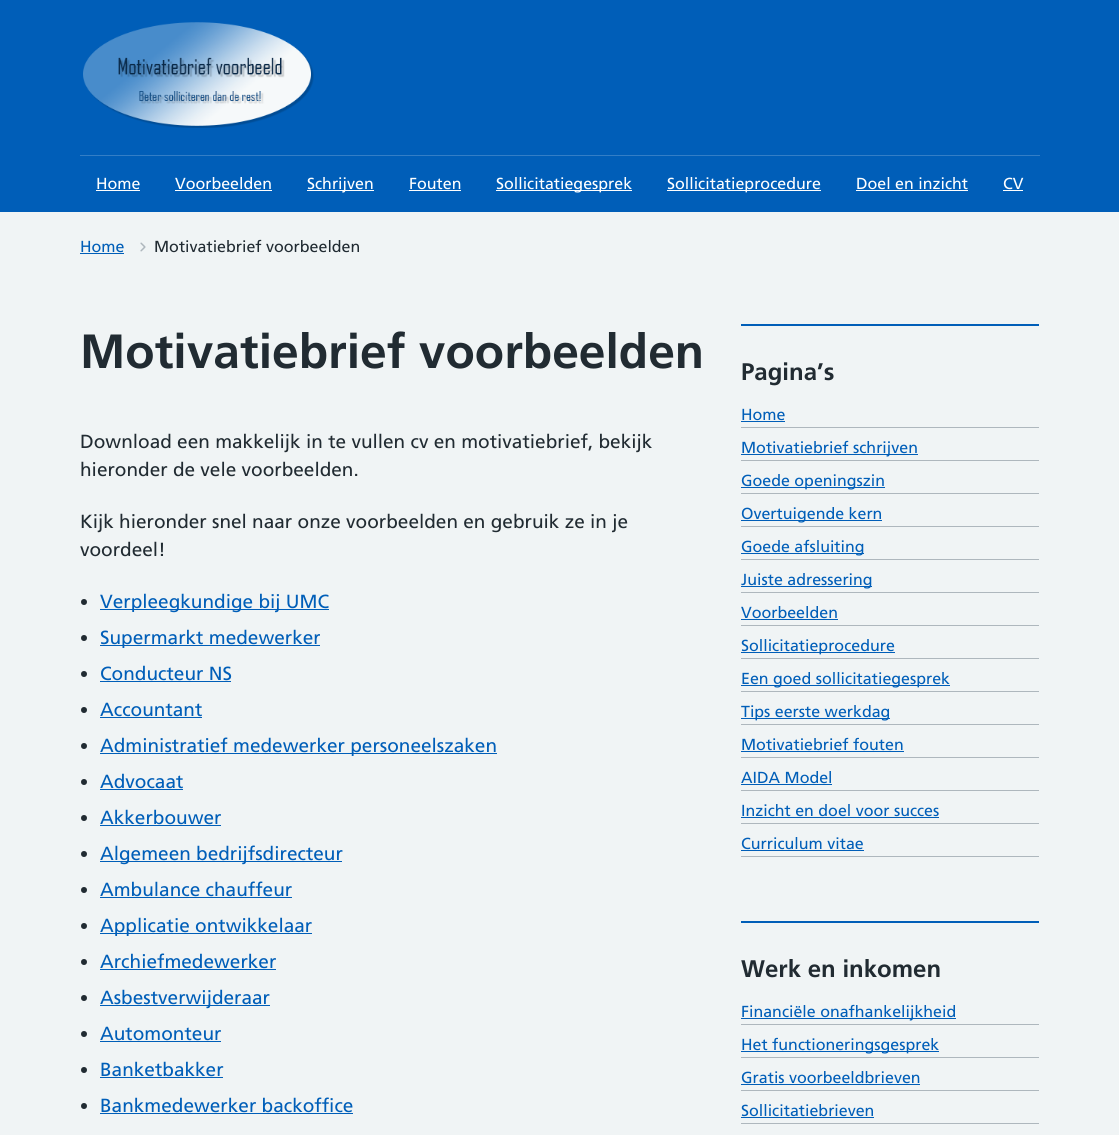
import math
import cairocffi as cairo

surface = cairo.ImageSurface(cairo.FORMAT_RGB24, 1119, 1135)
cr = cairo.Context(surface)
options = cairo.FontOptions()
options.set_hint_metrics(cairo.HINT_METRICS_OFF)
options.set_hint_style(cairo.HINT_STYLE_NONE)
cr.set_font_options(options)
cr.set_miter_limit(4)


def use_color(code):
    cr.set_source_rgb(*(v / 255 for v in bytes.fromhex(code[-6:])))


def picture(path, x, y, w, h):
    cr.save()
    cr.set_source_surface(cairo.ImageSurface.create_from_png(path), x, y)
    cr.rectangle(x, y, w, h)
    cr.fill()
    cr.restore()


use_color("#f0f4f5")
cr.paint()
use_color("#005eb8")
cr.rectangle(0, 0, 1119, 212)
cr.fill()
use_color("#337ec6")
cr.rectangle(80, 155, 960, 1)
cr.fill()
picture("img1.png", 83, 22, 231, 106)
cr.select_font_face("Frutiger")
cr.set_font_size(16)
use_color("#ffffff")
cr.move_to(96, 189)
cr.show_text("Home")
cr.rectangle(96, 190, 44, 1)
cr.fill()
cr.move_to(175, 189)
cr.show_text("Voorbeelden")
cr.rectangle(175, 190, 97, 1)
cr.fill()
cr.rectangle(307, 190, 67, 1)
cr.fill()
cr.move_to(307, 189)
cr.show_text("Schrijven")
cr.move_to(409, 189)
cr.show_text("Fouten")
cr.rectangle(409, 190, 52, 1)
cr.fill()
cr.rectangle(496, 190, 136, 1)
cr.fill()
cr.move_to(496, 189)
cr.show_text("Sollicitatiegesprek")
cr.rectangle(667, 190, 154, 1)
cr.fill()
cr.move_to(667, 189)
cr.show_text("Sollicitatieprocedure")
cr.move_to(856, 189)
cr.show_text("Doel en inzicht")
cr.rectangle(856, 190, 112, 1)
cr.fill()
cr.move_to(1003, 189)
cr.show_text("CV")
cr.rectangle(1003, 190, 20, 1)
cr.fill()
use_color("#005eb8")
cr.move_to(80, 252)
cr.show_text("Home")
cr.rectangle(80, 253, 44, 1)
cr.fill()
picture("img2.png", 140, 242, 6, 10)
use_color("#212b32")
cr.move_to(154, 252)
cr.show_text("Motivatiebrief voorbeelden")
cr.select_font_face("Frutiger", cairo.FONT_SLANT_NORMAL, cairo.FONT_WEIGHT_BOLD)
cr.set_font_size(48)
cr.move_to(80, 368)
cr.show_text("Motivatiebrief voorbeelden")
cr.select_font_face("Frutiger")
cr.set_font_size(19)
cr.move_to(80, 448)
cr.show_text("Download een makkelijk in te vullen cv en motivatiebrief, bekijk")
cr.move_to(80, 476)
cr.show_text("hieronder de vele voorbeelden.")
cr.move_to(80, 528)
cr.show_text("Kijk hieronder snel naar onze voorbeelden en gebruik ze in je")
cr.move_to(80, 556)
cr.show_text("voordeel!")
cr.new_path()
cr.arc(84, 602, 3, 0, 2 * math.pi)
cr.fill()
use_color("#005eb8")
cr.rectangle(100, 609, 229, 1)
cr.fill()
cr.move_to(100, 608)
cr.show_text("Verpleegkundige bij UMC")
use_color("#212b32")
cr.new_path()
cr.arc(84, 638, 3, 0, 2 * math.pi)
cr.fill()
use_color("#005eb8")
cr.rectangle(100, 645, 220, 1)
cr.fill()
cr.move_to(100, 644)
cr.show_text("Supermarkt medewerker")
use_color("#212b32")
cr.new_path()
cr.arc(84, 674, 3, 0, 2 * math.pi)
cr.fill()
use_color("#005eb8")
cr.move_to(100, 680)
cr.show_text("Conducteur NS")
cr.rectangle(100, 681, 131, 1)
cr.fill()
use_color("#212b32")
cr.arc(84, 710, 3, 0, 2 * math.pi)
cr.fill()
use_color("#005eb8")
cr.move_to(100, 716)
cr.show_text("Accountant")
cr.rectangle(100, 717, 102, 1)
cr.fill()
use_color("#212b32")
cr.arc(84, 746, 3, 0, 2 * math.pi)
cr.fill()
use_color("#005eb8")
cr.rectangle(100, 753, 397, 1)
cr.fill()
cr.move_to(100, 752)
cr.show_text("Administratief medewerker personeelszaken")
use_color("#212b32")
cr.new_path()
cr.arc(84, 782, 3, 0, 2 * math.pi)
cr.fill()
use_color("#005eb8")
cr.move_to(100, 788)
cr.show_text("Advocaat")
cr.rectangle(100, 789, 83, 1)
cr.fill()
use_color("#212b32")
cr.arc(84, 818, 3, 0, 2 * math.pi)
cr.fill()
use_color("#005eb8")
cr.move_to(100, 824)
cr.show_text("Akkerbouwer")
cr.rectangle(100, 825, 121, 1)
cr.fill()
use_color("#212b32")
cr.arc(84, 854, 3, 0, 2 * math.pi)
cr.fill()
use_color("#005eb8")
cr.rectangle(100, 861, 242, 1)
cr.fill()
cr.move_to(100, 860)
cr.show_text("Algemeen bedrijfsdirecteur")
use_color("#212b32")
cr.new_path()
cr.arc(84, 890, 3, 0, 2 * math.pi)
cr.fill()
use_color("#005eb8")
cr.move_to(100, 896)
cr.show_text("Ambulance chauffeur")
cr.rectangle(100, 897, 192, 1)
cr.fill()
use_color("#212b32")
cr.arc(84, 926, 3, 0, 2 * math.pi)
cr.fill()
use_color("#005eb8")
cr.rectangle(100, 933, 212, 1)
cr.fill()
cr.move_to(100, 932)
cr.show_text("Applicatie ontwikkelaar")
use_color("#212b32")
cr.new_path()
cr.arc(84, 962, 3, 0, 2 * math.pi)
cr.fill()
use_color("#005eb8")
cr.move_to(100, 968)
cr.show_text("Archiefmedewerker")
cr.rectangle(100, 969, 176, 1)
cr.fill()
use_color("#212b32")
cr.arc(84, 998, 3, 0, 2 * math.pi)
cr.fill()
use_color("#005eb8")
cr.rectangle(100, 1005, 170, 1)
cr.fill()
cr.move_to(100, 1004)
cr.show_text("Asbestverwijderaar")
use_color("#212b32")
cr.new_path()
cr.arc(84, 1034, 3, 0, 2 * math.pi)
cr.fill()
use_color("#005eb8")
cr.move_to(100, 1040)
cr.show_text("Automonteur")
cr.rectangle(100, 1041, 121, 1)
cr.fill()
use_color("#212b32")
cr.arc(84, 1070, 3, 0, 2 * math.pi)
cr.fill()
use_color("#005eb8")
cr.move_to(100, 1076)
cr.show_text("Banketbakker")
cr.rectangle(100, 1077, 123, 1)
cr.fill()
use_color("#212b32")
cr.arc(84, 1106, 3, 0, 2 * math.pi)
cr.fill()
use_color("#005eb8")
cr.move_to(100, 1112)
cr.show_text("Bankmedewerker backoffice")
cr.rectangle(100, 1113, 253, 1)
cr.fill()
cr.rectangle(741, 324, 298, 2)
cr.fill()
cr.select_font_face("Frutiger", cairo.FONT_SLANT_NORMAL, cairo.FONT_WEIGHT_BOLD)
cr.set_font_size(24)
use_color("#212b32")
cr.move_to(741, 380)
cr.show_text("Pagina’s")
use_color("#aeb7bd")
cr.rectangle(741, 427, 298, 1)
cr.fill()
cr.select_font_face("Frutiger")
cr.set_font_size(16)
use_color("#005eb8")
cr.move_to(741, 420)
cr.show_text("Home")
cr.rectangle(741, 421, 44, 1)
cr.fill()
use_color("#aeb7bd")
cr.rectangle(741, 460, 298, 1)
cr.fill()
use_color("#005eb8")
cr.rectangle(741, 454, 177, 1)
cr.fill()
cr.move_to(741, 453)
cr.show_text("Motivatiebrief schrijven")
use_color("#aeb7bd")
cr.rectangle(741, 493, 298, 1)
cr.fill()
use_color("#005eb8")
cr.rectangle(741, 487, 144, 1)
cr.fill()
cr.move_to(741, 486)
cr.show_text("Goede openingszin")
use_color("#aeb7bd")
cr.rectangle(741, 526, 298, 1)
cr.fill()
use_color("#005eb8")
cr.rectangle(741, 520, 141, 1)
cr.fill()
cr.move_to(741, 519)
cr.show_text("Overtuigende kern")
use_color("#aeb7bd")
cr.rectangle(741, 559, 298, 1)
cr.fill()
use_color("#005eb8")
cr.rectangle(741, 553, 123, 1)
cr.fill()
cr.move_to(741, 552)
cr.show_text("Goede afsluiting")
use_color("#aeb7bd")
cr.rectangle(741, 592, 298, 1)
cr.fill()
use_color("#005eb8")
cr.rectangle(741, 586, 131, 1)
cr.fill()
cr.move_to(741, 585)
cr.show_text("Juiste adressering")
use_color("#aeb7bd")
cr.rectangle(741, 625, 298, 1)
cr.fill()
use_color("#005eb8")
cr.move_to(741, 618)
cr.show_text("Voorbeelden")
cr.rectangle(741, 619, 97, 1)
cr.fill()
use_color("#aeb7bd")
cr.rectangle(741, 658, 298, 1)
cr.fill()
use_color("#005eb8")
cr.rectangle(741, 652, 154, 1)
cr.fill()
cr.move_to(741, 651)
cr.show_text("Sollicitatieprocedure")
use_color("#aeb7bd")
cr.rectangle(741, 691, 298, 1)
cr.fill()
use_color("#005eb8")
cr.rectangle(741, 685, 209, 1)
cr.fill()
cr.move_to(741, 684)
cr.show_text("Een goed sollicitatiegesprek")
use_color("#aeb7bd")
cr.rectangle(741, 724, 298, 1)
cr.fill()
use_color("#005eb8")
cr.rectangle(741, 718, 149, 1)
cr.fill()
cr.move_to(741, 717)
cr.show_text("Tips eerste werkdag")
use_color("#aeb7bd")
cr.rectangle(741, 757, 298, 1)
cr.fill()
use_color("#005eb8")
cr.move_to(741, 750)
cr.show_text("Motivatiebrief fouten")
cr.rectangle(741, 751, 163, 1)
cr.fill()
use_color("#aeb7bd")
cr.rectangle(741, 790, 298, 1)
cr.fill()
use_color("#005eb8")
cr.move_to(741, 783)
cr.show_text("AIDA Model")
cr.rectangle(741, 784, 91, 1)
cr.fill()
use_color("#aeb7bd")
cr.rectangle(741, 823, 298, 1)
cr.fill()
use_color("#005eb8")
cr.move_to(741, 816)
cr.show_text("Inzicht en doel voor succes")
cr.rectangle(741, 817, 198, 1)
cr.fill()
use_color("#aeb7bd")
cr.rectangle(741, 856, 298, 1)
cr.fill()
use_color("#005eb8")
cr.move_to(741, 849)
cr.show_text("Curriculum vitae")
cr.rectangle(741, 850, 123, 1)
cr.fill()
cr.rectangle(741, 921, 298, 2)
cr.fill()
cr.select_font_face("Frutiger", cairo.FONT_SLANT_NORMAL, cairo.FONT_WEIGHT_BOLD)
cr.set_font_size(24)
use_color("#212b32")
cr.move_to(741, 977)
cr.show_text("Werk en inkomen")
use_color("#aeb7bd")
cr.rectangle(741, 1024, 298, 1)
cr.fill()
use_color("#005eb8")
cr.rectangle(741, 1018, 215, 1)
cr.fill()
cr.select_font_face("Frutiger")
cr.set_font_size(16)
cr.move_to(741, 1017)
cr.show_text("Financiële onafhankelijkheid")
use_color("#aeb7bd")
cr.rectangle(741, 1057, 298, 1)
cr.fill()
use_color("#005eb8")
cr.rectangle(741, 1051, 198, 1)
cr.fill()
cr.move_to(741, 1050)
cr.show_text("Het functioneringsgesprek")
use_color("#aeb7bd")
cr.rectangle(741, 1090, 298, 1)
cr.fill()
use_color("#005eb8")
cr.move_to(741, 1083)
cr.show_text("Gratis voorbeeldbrieven")
cr.rectangle(741, 1084, 179, 1)
cr.fill()
use_color("#aeb7bd")
cr.rectangle(741, 1123, 298, 1)
cr.fill()
use_color("#005eb8")
cr.move_to(741, 1116)
cr.show_text("Sollicitatiebrieven")
cr.rectangle(741, 1117, 133, 1)
cr.fill()
surface.write_to_png("result.png")
